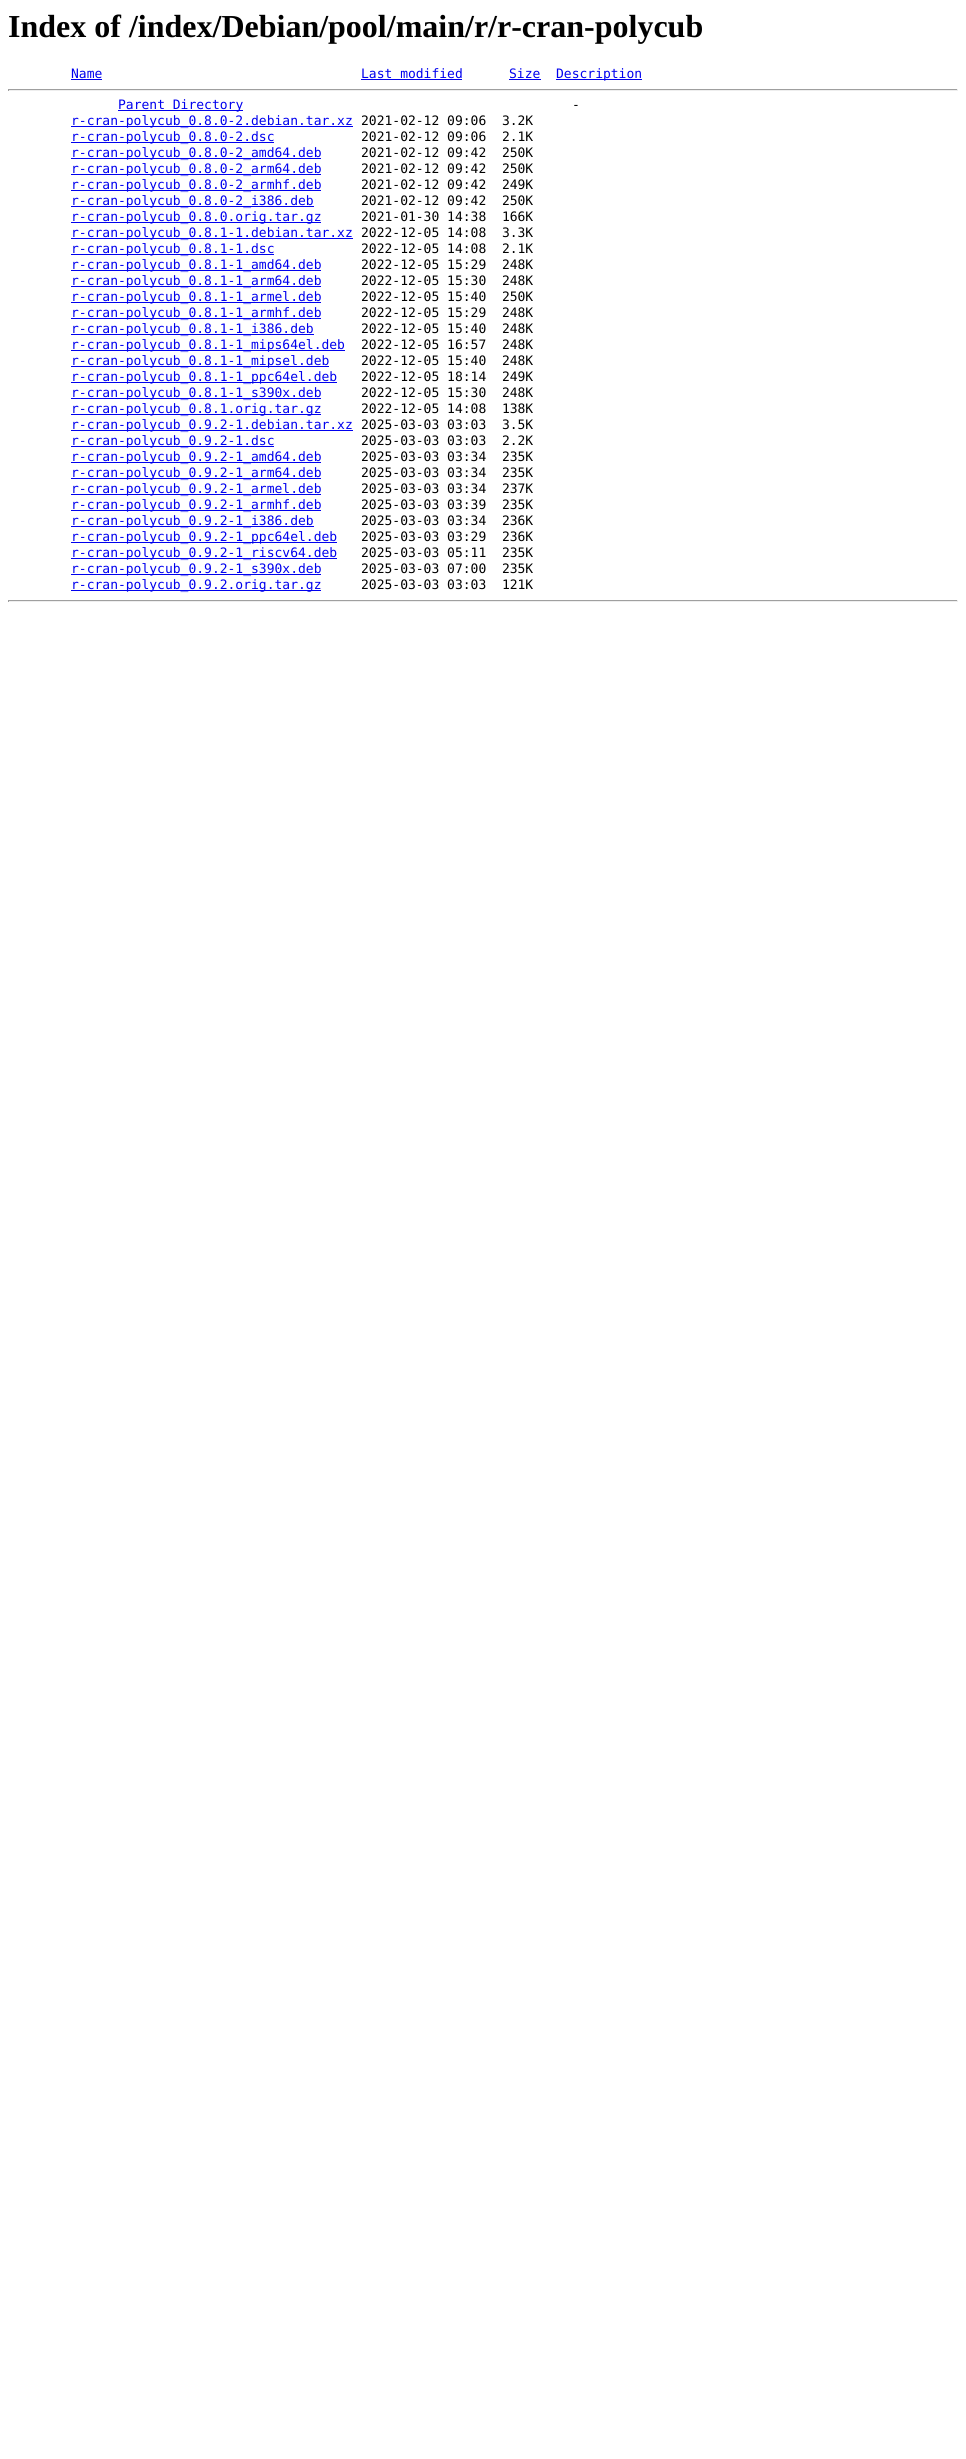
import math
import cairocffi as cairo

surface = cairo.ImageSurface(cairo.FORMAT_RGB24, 966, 2459)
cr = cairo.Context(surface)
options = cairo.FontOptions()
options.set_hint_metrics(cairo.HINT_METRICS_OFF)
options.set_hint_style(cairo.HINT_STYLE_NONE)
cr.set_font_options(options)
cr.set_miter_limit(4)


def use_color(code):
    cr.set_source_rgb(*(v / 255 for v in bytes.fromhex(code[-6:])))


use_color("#ffffff")
cr.paint()
cr.select_font_face("Liberation Serif", cairo.FONT_SLANT_NORMAL, cairo.FONT_WEIGHT_BOLD)
cr.set_font_size(32)
use_color("#000000")
cr.move_to(8, 37)
cr.show_text("Index of /index/Debian/pool/main/r/r-cran-polycub")
cr.select_font_face("DejaVu Sans Mono")
cr.set_font_size(13)
use_color("#0000ee")
cr.move_to(71, 78)
cr.show_text("Name")
cr.rectangle(71, 79, 31, 1)
cr.fill()
cr.move_to(361, 78)
cr.show_text("Last modified")
cr.rectangle(361, 79, 101, 1)
cr.fill()
cr.move_to(509, 78)
cr.show_text("Size")
cr.rectangle(509, 79, 32, 1)
cr.fill()
cr.rectangle(556, 79, 86, 1)
cr.fill()
cr.move_to(556, 78)
cr.show_text("Description")
use_color("#9f9f9f")
cr.rectangle(8, 89, 950, 1)
cr.fill()
use_color("#eeeeee")
cr.rectangle(957, 89, 1, 2)
cr.fill()
cr.rectangle(8, 90, 950, 1)
cr.fill()
use_color("#9f9f9f")
cr.rectangle(8, 89, 1, 2)
cr.fill()
use_color("#0000ee")
cr.rectangle(118, 110, 125, 1)
cr.fill()
cr.move_to(118, 109)
cr.show_text("Parent Directory")
use_color("#000000")
cr.move_to(572, 109)
cr.show_text("-")
use_color("#0000ee")
cr.rectangle(71, 126, 282, 1)
cr.fill()
cr.move_to(71, 125)
cr.show_text("r-cran-polycub_0.8.0-2.debian.tar.xz")
use_color("#000000")
cr.move_to(361, 125)
cr.show_text("2021-02-12 09:06  3.2K")
use_color("#0000ee")
cr.rectangle(71, 142, 203, 1)
cr.fill()
cr.move_to(71, 141)
cr.show_text("r-cran-polycub_0.8.0-2.dsc")
use_color("#000000")
cr.move_to(361, 141)
cr.show_text("2021-02-12 09:06  2.1K")
use_color("#0000ee")
cr.rectangle(71, 158, 250, 1)
cr.fill()
cr.move_to(71, 157)
cr.show_text("r-cran-polycub_0.8.0-2_amd64.deb")
use_color("#000000")
cr.move_to(361, 157)
cr.show_text("2021-02-12 09:42  250K")
use_color("#0000ee")
cr.rectangle(71, 174, 250, 1)
cr.fill()
cr.move_to(71, 173)
cr.show_text("r-cran-polycub_0.8.0-2_arm64.deb")
use_color("#000000")
cr.move_to(361, 173)
cr.show_text("2021-02-12 09:42  250K")
use_color("#0000ee")
cr.rectangle(71, 190, 250, 1)
cr.fill()
cr.move_to(71, 189)
cr.show_text("r-cran-polycub_0.8.0-2_armhf.deb")
use_color("#000000")
cr.move_to(361, 189)
cr.show_text("2021-02-12 09:42  249K")
use_color("#0000ee")
cr.rectangle(71, 206, 243, 1)
cr.fill()
cr.move_to(71, 205)
cr.show_text("r-cran-polycub_0.8.0-2_i386.deb")
use_color("#000000")
cr.move_to(361, 205)
cr.show_text("2021-02-12 09:42  250K")
use_color("#0000ee")
cr.rectangle(71, 222, 250, 1)
cr.fill()
cr.move_to(71, 221)
cr.show_text("r-cran-polycub_0.8.0.orig.tar.gz")
use_color("#000000")
cr.move_to(361, 221)
cr.show_text("2021-01-30 14:38  166K")
use_color("#0000ee")
cr.rectangle(71, 238, 282, 1)
cr.fill()
cr.move_to(71, 237)
cr.show_text("r-cran-polycub_0.8.1-1.debian.tar.xz")
use_color("#000000")
cr.move_to(361, 237)
cr.show_text("2022-12-05 14:08  3.3K")
use_color("#0000ee")
cr.rectangle(71, 254, 203, 1)
cr.fill()
cr.move_to(71, 253)
cr.show_text("r-cran-polycub_0.8.1-1.dsc")
use_color("#000000")
cr.move_to(361, 253)
cr.show_text("2022-12-05 14:08  2.1K")
use_color("#0000ee")
cr.rectangle(71, 270, 250, 1)
cr.fill()
cr.move_to(71, 269)
cr.show_text("r-cran-polycub_0.8.1-1_amd64.deb")
use_color("#000000")
cr.move_to(361, 269)
cr.show_text("2022-12-05 15:29  248K")
use_color("#0000ee")
cr.rectangle(71, 286, 250, 1)
cr.fill()
cr.move_to(71, 285)
cr.show_text("r-cran-polycub_0.8.1-1_arm64.deb")
use_color("#000000")
cr.move_to(361, 285)
cr.show_text("2022-12-05 15:30  248K")
use_color("#0000ee")
cr.rectangle(71, 302, 250, 1)
cr.fill()
cr.move_to(71, 301)
cr.show_text("r-cran-polycub_0.8.1-1_armel.deb")
use_color("#000000")
cr.move_to(361, 301)
cr.show_text("2022-12-05 15:40  250K")
use_color("#0000ee")
cr.rectangle(71, 318, 250, 1)
cr.fill()
cr.move_to(71, 317)
cr.show_text("r-cran-polycub_0.8.1-1_armhf.deb")
use_color("#000000")
cr.move_to(361, 317)
cr.show_text("2022-12-05 15:29  248K")
use_color("#0000ee")
cr.rectangle(71, 334, 243, 1)
cr.fill()
cr.move_to(71, 333)
cr.show_text("r-cran-polycub_0.8.1-1_i386.deb")
use_color("#000000")
cr.move_to(361, 333)
cr.show_text("2022-12-05 15:40  248K")
use_color("#0000ee")
cr.rectangle(71, 350, 274, 1)
cr.fill()
cr.move_to(71, 349)
cr.show_text("r-cran-polycub_0.8.1-1_mips64el.deb")
use_color("#000000")
cr.move_to(361, 349)
cr.show_text("2022-12-05 16:57  248K")
use_color("#0000ee")
cr.rectangle(71, 366, 258, 1)
cr.fill()
cr.move_to(71, 365)
cr.show_text("r-cran-polycub_0.8.1-1_mipsel.deb")
use_color("#000000")
cr.move_to(361, 365)
cr.show_text("2022-12-05 15:40  248K")
use_color("#0000ee")
cr.rectangle(71, 382, 266, 1)
cr.fill()
cr.move_to(71, 381)
cr.show_text("r-cran-polycub_0.8.1-1_ppc64el.deb")
use_color("#000000")
cr.move_to(361, 381)
cr.show_text("2022-12-05 18:14  249K")
use_color("#0000ee")
cr.rectangle(71, 398, 250, 1)
cr.fill()
cr.move_to(71, 397)
cr.show_text("r-cran-polycub_0.8.1-1_s390x.deb")
use_color("#000000")
cr.move_to(361, 397)
cr.show_text("2022-12-05 15:30  248K")
use_color("#0000ee")
cr.rectangle(71, 414, 250, 1)
cr.fill()
cr.move_to(71, 413)
cr.show_text("r-cran-polycub_0.8.1.orig.tar.gz")
use_color("#000000")
cr.move_to(361, 413)
cr.show_text("2022-12-05 14:08  138K")
use_color("#0000ee")
cr.rectangle(71, 430, 282, 1)
cr.fill()
cr.move_to(71, 429)
cr.show_text("r-cran-polycub_0.9.2-1.debian.tar.xz")
use_color("#000000")
cr.move_to(361, 429)
cr.show_text("2025-03-03 03:03  3.5K")
use_color("#0000ee")
cr.rectangle(71, 446, 203, 1)
cr.fill()
cr.move_to(71, 445)
cr.show_text("r-cran-polycub_0.9.2-1.dsc")
use_color("#000000")
cr.move_to(361, 445)
cr.show_text("2025-03-03 03:03  2.2K")
use_color("#0000ee")
cr.rectangle(71, 462, 250, 1)
cr.fill()
cr.move_to(71, 461)
cr.show_text("r-cran-polycub_0.9.2-1_amd64.deb")
use_color("#000000")
cr.move_to(361, 461)
cr.show_text("2025-03-03 03:34  235K")
use_color("#0000ee")
cr.rectangle(71, 478, 250, 1)
cr.fill()
cr.move_to(71, 477)
cr.show_text("r-cran-polycub_0.9.2-1_arm64.deb")
use_color("#000000")
cr.move_to(361, 477)
cr.show_text("2025-03-03 03:34  235K")
use_color("#0000ee")
cr.rectangle(71, 494, 250, 1)
cr.fill()
cr.move_to(71, 493)
cr.show_text("r-cran-polycub_0.9.2-1_armel.deb")
use_color("#000000")
cr.move_to(361, 493)
cr.show_text("2025-03-03 03:34  237K")
use_color("#0000ee")
cr.rectangle(71, 510, 250, 1)
cr.fill()
cr.move_to(71, 509)
cr.show_text("r-cran-polycub_0.9.2-1_armhf.deb")
use_color("#000000")
cr.move_to(361, 509)
cr.show_text("2025-03-03 03:39  235K")
use_color("#0000ee")
cr.rectangle(71, 526, 243, 1)
cr.fill()
cr.move_to(71, 525)
cr.show_text("r-cran-polycub_0.9.2-1_i386.deb")
use_color("#000000")
cr.move_to(361, 525)
cr.show_text("2025-03-03 03:34  236K")
use_color("#0000ee")
cr.rectangle(71, 542, 266, 1)
cr.fill()
cr.move_to(71, 541)
cr.show_text("r-cran-polycub_0.9.2-1_ppc64el.deb")
use_color("#000000")
cr.move_to(361, 541)
cr.show_text("2025-03-03 03:29  236K")
use_color("#0000ee")
cr.rectangle(71, 558, 266, 1)
cr.fill()
cr.move_to(71, 557)
cr.show_text("r-cran-polycub_0.9.2-1_riscv64.deb")
use_color("#000000")
cr.move_to(361, 557)
cr.show_text("2025-03-03 05:11  235K")
use_color("#0000ee")
cr.rectangle(71, 574, 250, 1)
cr.fill()
cr.move_to(71, 573)
cr.show_text("r-cran-polycub_0.9.2-1_s390x.deb")
use_color("#000000")
cr.move_to(361, 573)
cr.show_text("2025-03-03 07:00  235K")
use_color("#0000ee")
cr.rectangle(71, 590, 250, 1)
cr.fill()
cr.move_to(71, 589)
cr.show_text("r-cran-polycub_0.9.2.orig.tar.gz")
use_color("#000000")
cr.move_to(361, 589)
cr.show_text("2025-03-03 03:03  121K")
use_color("#9f9f9f")
cr.rectangle(8, 600, 950, 1)
cr.fill()
use_color("#eeeeee")
cr.rectangle(957, 600, 1, 2)
cr.fill()
cr.rectangle(8, 601, 950, 1)
cr.fill()
use_color("#9f9f9f")
cr.rectangle(8, 600, 1, 2)
cr.fill()
surface.write_to_png("result.png")
